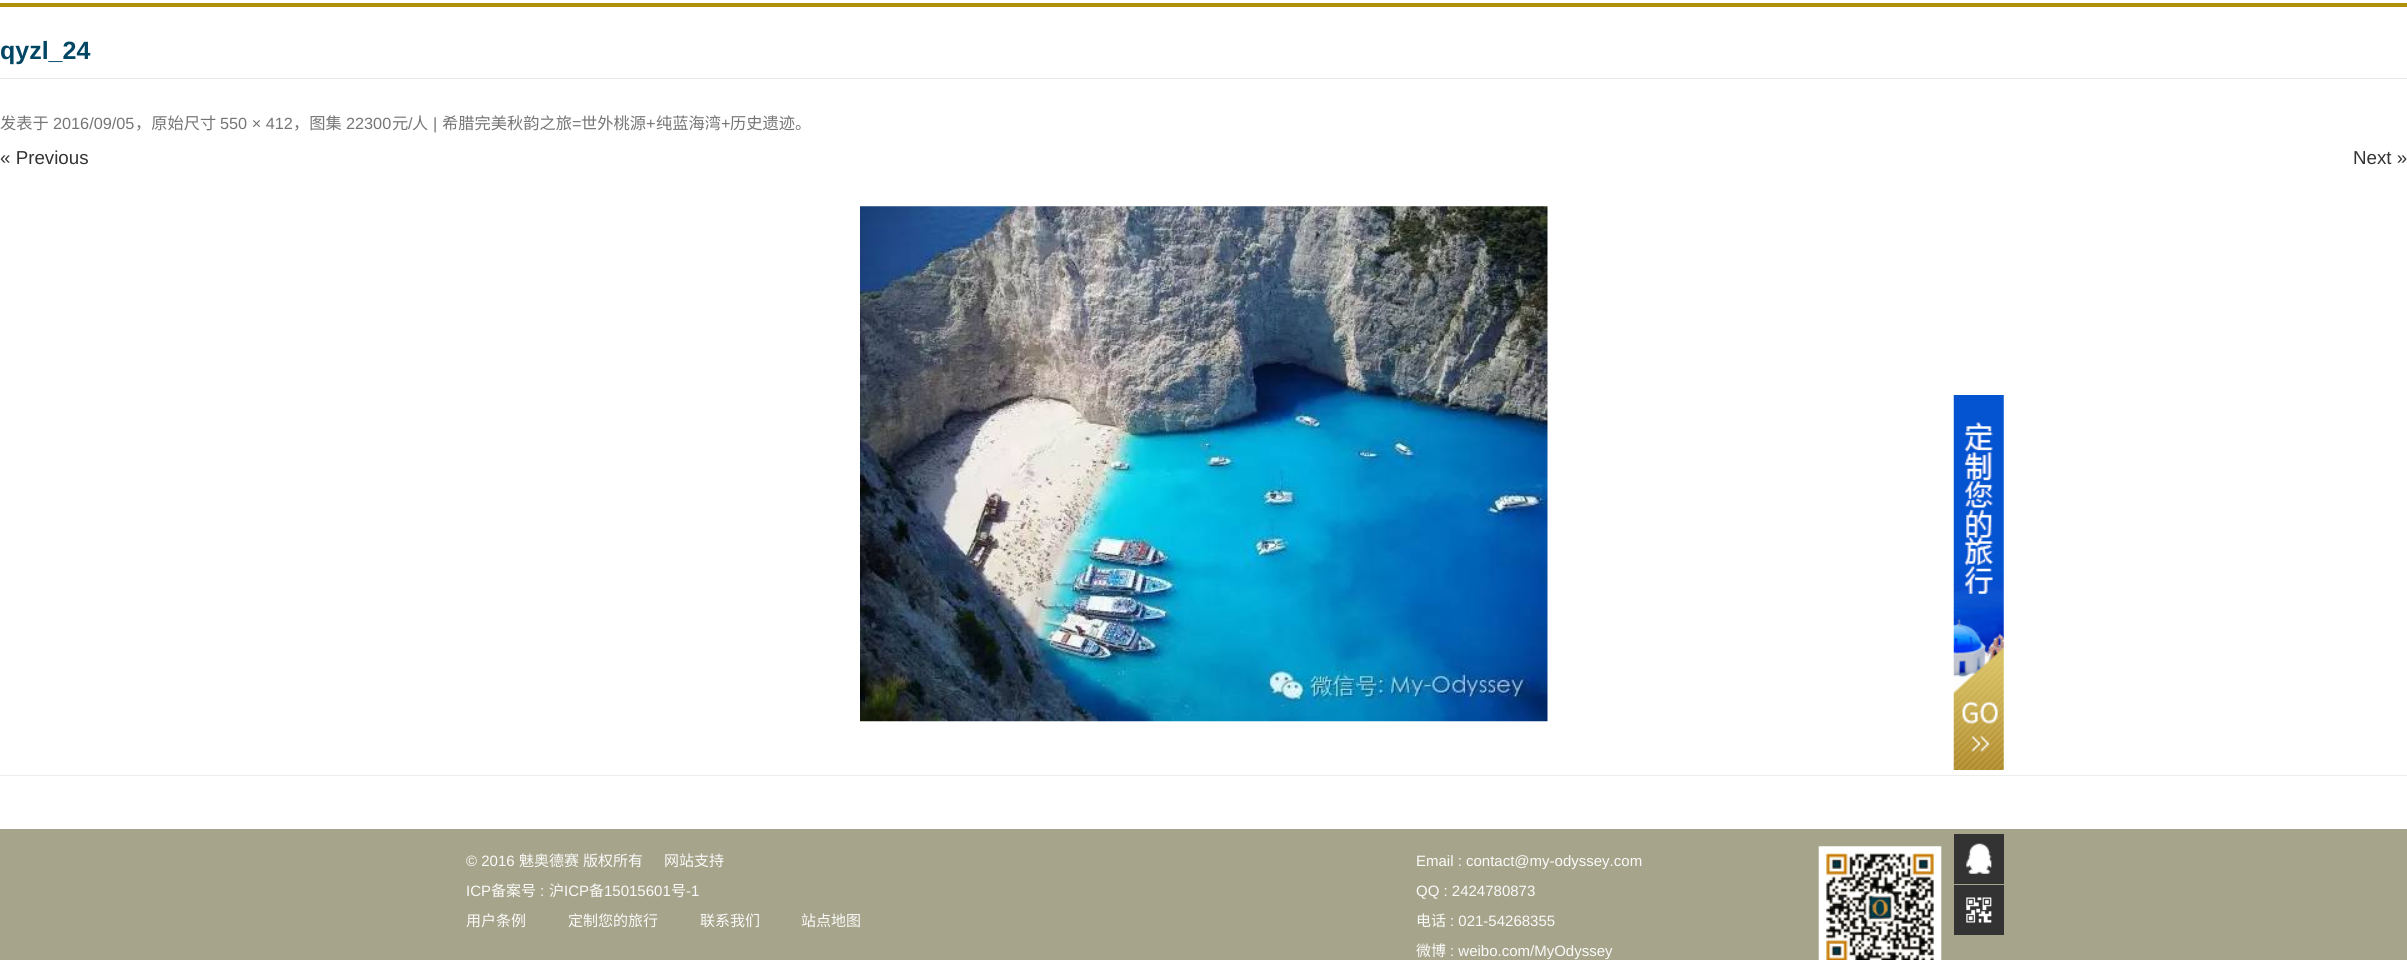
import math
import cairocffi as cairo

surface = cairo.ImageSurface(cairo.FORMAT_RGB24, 2407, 960)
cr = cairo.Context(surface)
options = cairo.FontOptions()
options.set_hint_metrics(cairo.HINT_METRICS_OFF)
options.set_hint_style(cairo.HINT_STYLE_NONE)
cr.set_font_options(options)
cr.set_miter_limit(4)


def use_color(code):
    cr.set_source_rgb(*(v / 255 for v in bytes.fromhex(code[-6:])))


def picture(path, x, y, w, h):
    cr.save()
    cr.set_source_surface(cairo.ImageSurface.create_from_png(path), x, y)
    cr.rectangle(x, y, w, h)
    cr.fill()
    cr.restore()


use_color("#ffffff")
cr.paint()
use_color("#b1900b")
cr.rectangle(0, 3, 2407, 4)
cr.fill()
use_color("#ededed")
cr.rectangle(0, 775, 2407, 1)
cr.fill()
use_color("#e6e6e6")
cr.rectangle(0, 78, 2407, 1)
cr.fill()
cr.select_font_face("Liberation Sans", cairo.FONT_SLANT_NORMAL, cairo.FONT_WEIGHT_BOLD)
cr.set_font_size(25)
use_color("#004664")
cr.move_to(0, 59)
cr.show_text("qyzl_24")
cr.select_font_face("Noto Sans CJK SC")
cr.set_font_size(16.25)
use_color("#757575")
cr.move_to(0, 129)
cr.show_text("发表于")
cr.select_font_face("Liberation Sans")
cr.move_to(53, 129)
cr.show_text("2016/09/05")
cr.select_font_face("Noto Sans CJK SC")
cr.move_to(135, 129)
cr.show_text("，原始尺寸")
cr.select_font_face("Liberation Sans")
cr.move_to(220, 129)
cr.show_text("550 × 412")
cr.select_font_face("Noto Sans CJK SC")
cr.move_to(293, 129)
cr.show_text("，图集")
cr.select_font_face("Liberation Sans")
cr.move_to(346, 129)
cr.show_text("22300")
cr.select_font_face("Noto Sans CJK SC")
cr.move_to(392, 129)
cr.show_text("元")
cr.select_font_face("Liberation Sans")
cr.move_to(408, 129)
cr.show_text("/")
cr.select_font_face("Noto Sans CJK SC")
cr.move_to(412, 129)
cr.show_text("人")
cr.select_font_face("Liberation Sans")
cr.move_to(433, 129)
cr.show_text("|")
cr.select_font_face("Noto Sans CJK SC")
cr.move_to(442, 129)
cr.show_text("希腊完美秋韵之旅")
cr.select_font_face("Liberation Sans")
cr.move_to(572, 129)
cr.show_text("=")
cr.select_font_face("Noto Sans CJK SC")
cr.move_to(581, 129)
cr.show_text("世外桃源")
cr.select_font_face("Liberation Sans")
cr.move_to(646, 129)
cr.show_text("+")
cr.select_font_face("Noto Sans CJK SC")
cr.move_to(656, 129)
cr.show_text("纯蓝海湾")
cr.select_font_face("Liberation Sans")
cr.move_to(721, 129)
cr.show_text("+")
cr.select_font_face("Noto Sans CJK SC")
cr.move_to(730, 129)
cr.show_text("历史遗迹。")
cr.select_font_face("Liberation Sans")
cr.set_font_size(18.75)
use_color("#333333")
cr.move_to(0, 164)
cr.show_text("« Previous")
cr.move_to(2353, 164)
cr.show_text("Next »")
picture("img1.png", 860, 206, 688, 516)
picture("img2.png", 1953, 395, 51, 375)
use_color("#a6a58b")
cr.rectangle(0, 829, 2407, 131)
cr.fill()
cr.set_font_size(15)
use_color("#fafafa")
cr.move_to(466, 866)
cr.show_text("© 2016")
cr.select_font_face("Noto Sans CJK SC")
cr.move_to(519, 866)
cr.show_text("魅奥德赛")
cr.move_to(583, 866)
cr.show_text("版权所有")
cr.move_to(664, 866)
cr.show_text("网站支持")
cr.select_font_face("Liberation Sans")
cr.move_to(466, 896)
cr.show_text("ICP")
cr.select_font_face("Noto Sans CJK SC")
cr.move_to(491, 896)
cr.show_text("备案号")
cr.select_font_face("Liberation Sans")
cr.move_to(540, 896)
cr.show_text(":")
cr.select_font_face("Noto Sans CJK SC")
cr.move_to(549, 896)
cr.show_text("沪")
cr.select_font_face("Liberation Sans")
cr.move_to(564, 896)
cr.show_text("ICP")
cr.select_font_face("Noto Sans CJK SC")
cr.move_to(589, 896)
cr.show_text("备")
cr.select_font_face("Liberation Sans")
cr.move_to(604, 896)
cr.show_text("15015601")
cr.select_font_face("Noto Sans CJK SC")
cr.move_to(671, 896)
cr.show_text("号")
cr.select_font_face("Liberation Sans")
cr.move_to(686, 896)
cr.show_text("-1")
cr.select_font_face("Noto Sans CJK SC")
cr.move_to(466, 926)
cr.show_text("用户条例")
cr.move_to(568, 926)
cr.show_text("定制您的旅行")
cr.move_to(700, 926)
cr.show_text("联系我们")
cr.move_to(801, 926)
cr.show_text("站点地图")
cr.select_font_face("Liberation Sans")
cr.move_to(1416, 866)
cr.show_text("Email : contact@my-odyssey.com")
cr.move_to(1416, 896)
cr.show_text("QQ : 2424780873")
cr.select_font_face("Noto Sans CJK SC")
cr.move_to(1416, 926)
cr.show_text("电话")
cr.select_font_face("Liberation Sans")
cr.move_to(1450, 926)
cr.show_text(": 021-54268355")
cr.select_font_face("Noto Sans CJK SC")
cr.move_to(1416, 956)
cr.show_text("微博")
cr.select_font_face("Liberation Sans")
cr.move_to(1450, 956)
cr.show_text(": weibo.com/MyOdyssey")
picture("img3.png", 1818, 846, 124, 114)
use_color("#333333")
cr.rectangle(1954, 834, 50, 50)
cr.fill()
picture("img4.png", 1966, 843, 26, 31)
cr.rectangle(1954, 885, 50, 50)
cr.fill()
picture("img5.png", 1966, 897, 26, 26)
surface.write_to_png("result.png")
